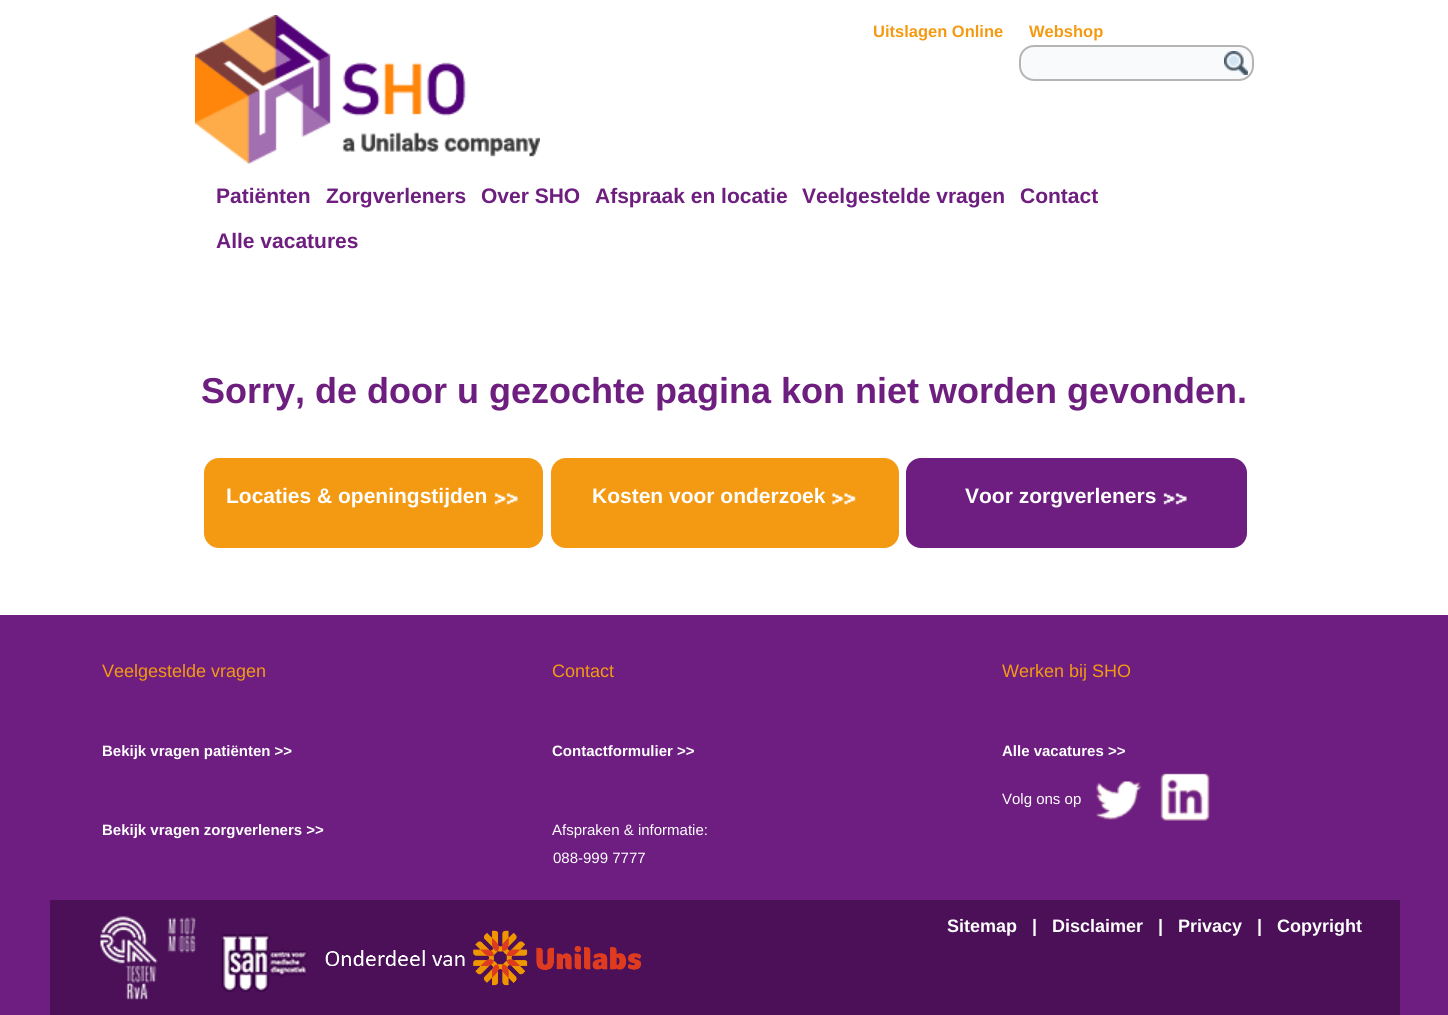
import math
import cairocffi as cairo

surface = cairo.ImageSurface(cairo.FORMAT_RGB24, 1448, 1015)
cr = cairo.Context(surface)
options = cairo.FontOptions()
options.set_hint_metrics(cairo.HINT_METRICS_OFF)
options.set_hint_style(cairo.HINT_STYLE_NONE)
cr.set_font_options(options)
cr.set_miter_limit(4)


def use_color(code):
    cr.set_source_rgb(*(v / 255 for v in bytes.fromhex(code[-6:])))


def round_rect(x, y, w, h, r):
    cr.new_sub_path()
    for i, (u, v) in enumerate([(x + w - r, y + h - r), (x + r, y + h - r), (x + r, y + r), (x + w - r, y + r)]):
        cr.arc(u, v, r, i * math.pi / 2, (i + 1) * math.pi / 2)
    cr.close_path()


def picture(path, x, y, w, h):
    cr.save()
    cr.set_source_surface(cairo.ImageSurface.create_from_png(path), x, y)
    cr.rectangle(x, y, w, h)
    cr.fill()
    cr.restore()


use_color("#ffffff")
cr.paint()
picture("img1.png", 195, 15, 345, 149)
cr.select_font_face("Liberation Sans", cairo.FONT_SLANT_NORMAL, cairo.FONT_WEIGHT_BOLD)
cr.set_font_size(16.5)
use_color("#f49a12")
cr.move_to(873, 37)
cr.show_text("Uitslagen Online")
cr.move_to(1029, 37)
cr.show_text("Webshop")
use_color("#f9fafb")
round_rect(1020, 46, 233, 34, 14)
cr.fill_preserve()
use_color("#b5b5b5")
cr.stroke()
picture("img2.png", 1224, 51, 24, 24)
cr.set_font_size(21)
use_color("#6e1e7f")
cr.move_to(216, 203)
cr.show_text("Patiënten")
cr.move_to(326, 203)
cr.show_text("Zorgverleners")
cr.move_to(481, 203)
cr.show_text("Over SHO")
cr.move_to(595, 203)
cr.show_text("Afspraak en locatie")
cr.move_to(802, 203)
cr.show_text("Veelgestelde vragen")
cr.move_to(1020, 203)
cr.show_text("Contact")
cr.move_to(216, 248)
cr.show_text("Alle vacatures")
cr.set_font_size(36)
cr.move_to(201, 403)
cr.show_text("Sorry, de door u gezochte pagina kon niet worden gevonden.")
use_color("#f49a12")
round_rect(204, 458, 339, 90, 15)
cr.fill()
cr.set_font_size(21)
use_color("#ffffff")
cr.move_to(226, 503)
cr.show_text("Locaties & openingstijden")
picture("img3.png", 494, 493, 24, 12)
use_color("#f49a12")
round_rect(551, 458, 348, 90, 15)
cr.fill()
use_color("#ffffff")
cr.move_to(592, 503)
cr.show_text("Kosten voor onderzoek")
picture("img4.png", 832, 493, 24, 12)
use_color("#6e1e80")
round_rect(906, 458, 341, 90, 15)
cr.fill()
use_color("#ffffff")
cr.move_to(965, 503)
cr.show_text("Voor zorgverleners")
picture("img5.png", 1163, 493, 24, 12)
use_color("#6e1e80")
cr.rectangle(0, 615, 1448, 400)
cr.fill()
cr.select_font_face("Liberation Sans")
cr.set_font_size(18)
use_color("#f49a12")
cr.move_to(102, 677)
cr.show_text("Veelgestelde vragen")
cr.select_font_face("Liberation Sans", cairo.FONT_SLANT_NORMAL, cairo.FONT_WEIGHT_BOLD)
cr.set_font_size(15)
use_color("#ffffff")
cr.move_to(102, 756)
cr.show_text("Bekijk vragen patiënten >>")
cr.move_to(102, 835)
cr.show_text("Bekijk vragen zorgverleners >>")
cr.select_font_face("Liberation Sans")
cr.set_font_size(18)
use_color("#f49a12")
cr.move_to(552, 677)
cr.show_text("Contact")
cr.select_font_face("Liberation Sans", cairo.FONT_SLANT_NORMAL, cairo.FONT_WEIGHT_BOLD)
cr.set_font_size(15)
use_color("#ffffff")
cr.move_to(552, 756)
cr.show_text("Contactformulier >>")
cr.select_font_face("Liberation Sans")
cr.move_to(552, 835)
cr.show_text("Afspraken & informatie:")
cr.move_to(553, 863)
cr.show_text("088-999 7777")
cr.set_font_size(18)
use_color("#f49a12")
cr.move_to(1002, 677)
cr.show_text("Werken bij SHO")
cr.select_font_face("Liberation Sans", cairo.FONT_SLANT_NORMAL, cairo.FONT_WEIGHT_BOLD)
cr.set_font_size(15)
use_color("#ffffff")
cr.move_to(1002, 756)
cr.show_text("Alle vacatures >>")
cr.select_font_face("Liberation Sans")
cr.move_to(1002, 804)
cr.show_text("Volg ons op")
picture("img6.png", 1096, 781, 46, 39)
picture("img7.png", 1160, 773, 50, 48)
use_color("#4b1058")
cr.rectangle(50, 900, 1350, 115)
cr.fill()
picture("img8.png", 100, 916, 96, 84)
picture("img9.png", 221, 934, 87, 58)
picture("img10.png", 325, 930, 317, 56)
cr.select_font_face("Liberation Sans", cairo.FONT_SLANT_NORMAL, cairo.FONT_WEIGHT_BOLD)
cr.set_font_size(18)
use_color("#ffffff")
cr.move_to(947, 932)
cr.show_text("Sitemap")
cr.move_to(1032, 932)
cr.show_text("|")
cr.move_to(1052, 932)
cr.show_text("Disclaimer")
cr.move_to(1158, 932)
cr.show_text("|")
cr.move_to(1178, 932)
cr.show_text("Privacy")
cr.move_to(1257, 932)
cr.show_text("|")
cr.move_to(1277, 932)
cr.show_text("Copyright")
surface.write_to_png("result.png")
